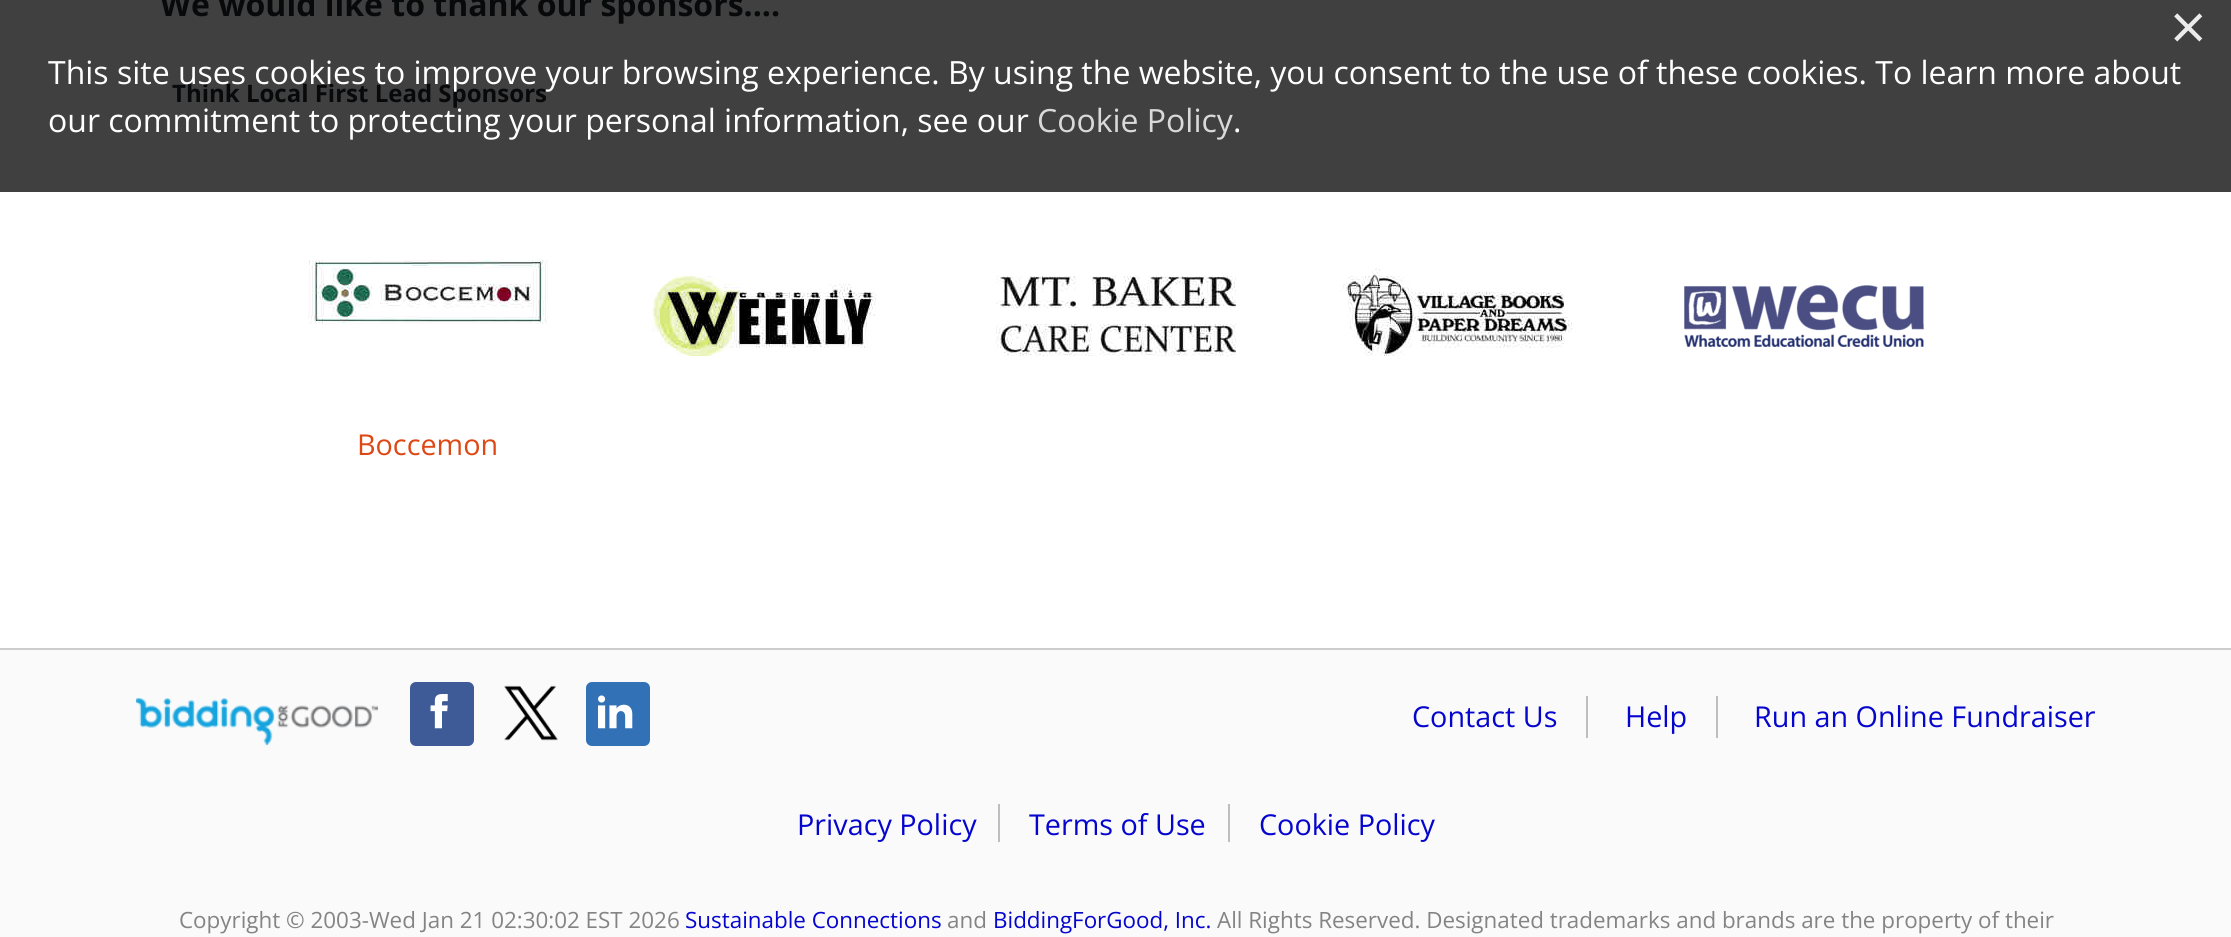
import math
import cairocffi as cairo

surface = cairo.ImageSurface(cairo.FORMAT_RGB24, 2231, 937)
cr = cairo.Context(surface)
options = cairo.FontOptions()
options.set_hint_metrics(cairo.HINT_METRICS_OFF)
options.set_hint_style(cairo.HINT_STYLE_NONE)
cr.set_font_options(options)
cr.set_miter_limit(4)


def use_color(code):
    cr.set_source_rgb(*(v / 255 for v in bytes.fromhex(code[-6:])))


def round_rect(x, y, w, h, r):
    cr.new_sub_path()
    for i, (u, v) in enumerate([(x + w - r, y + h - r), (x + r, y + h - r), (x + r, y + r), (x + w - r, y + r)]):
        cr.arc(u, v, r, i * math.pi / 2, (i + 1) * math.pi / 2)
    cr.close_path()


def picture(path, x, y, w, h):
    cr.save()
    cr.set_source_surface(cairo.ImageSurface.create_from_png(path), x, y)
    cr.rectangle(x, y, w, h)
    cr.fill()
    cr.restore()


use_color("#ffffff")
cr.paint()
use_color("#404040")
cr.rectangle(0, 0, 2231, 192)
cr.fill()
cr.select_font_face("Open Sans", cairo.FONT_SLANT_NORMAL, cairo.FONT_WEIGHT_BOLD)
cr.set_font_size(32)
use_color("#08090a")
cr.move_to(160, 16)
cr.show_text("We would like to thank our sponsors....")
cr.set_font_size(24)
cr.move_to(172, 102)
cr.show_text("Think Local First Lead Sponsors")
picture("img1.png", 652, 276, 224, 80)
picture("img2.png", 996, 276, 240, 80)
picture("img3.png", 1340, 268, 232, 88)
picture("img4.png", 1684, 285, 240, 63)
picture("img5.png", 308, 260, 240, 64)
cr.select_font_face("Open Sans")
cr.set_font_size(28.75)
use_color("#dd4814")
cr.move_to(357, 455)
cr.show_text("Boccemon")
cr.set_font_size(64)
use_color("#ececec")
cr.move_to(2170, 50)
cr.show_text("×")
cr.set_font_size(32)
use_color("#ffffff")
cr.move_to(48, 84)
cr.show_text("This site uses cookies to improve your browsing experience. By using the website, you consent to the use of these cookies. To learn more about")
cr.move_to(48, 132)
cr.show_text("our commitment to protecting your personal information, see our")
use_color("#d9d9d9")
cr.move_to(1037, 132)
cr.show_text("Cookie Policy")
use_color("#ffffff")
cr.move_to(1233, 132)
cr.show_text(".")
use_color("#fafafa")
cr.rectangle(0, 650, 2231, 287)
cr.fill()
use_color("#cccccc")
cr.rectangle(0, 648, 2231, 2)
cr.fill()
picture("img6.png", 136, 698, 242, 48)
use_color("#3e5b98")
round_rect(410, 682, 64, 64, 6)
cr.fill()
picture("img7.png", 430, 694, 18, 35)
picture("img8.png", 504, 685, 54, 56)
use_color("#3371b7")
round_rect(586, 682, 64, 64, 6)
cr.fill()
picture("img9.png", 598, 695, 35, 34)
use_color("#bebebe")
cr.rectangle(1586, 696, 2, 42)
cr.fill()
cr.set_font_size(28.75)
use_color("#0505ce")
cr.move_to(1412, 727)
cr.show_text("Contact Us")
use_color("#bebebe")
cr.rectangle(1716, 696, 2, 42)
cr.fill()
use_color("#0505ce")
cr.move_to(1625, 727)
cr.show_text("Help")
cr.move_to(1754, 727)
cr.show_text("Run an Online Fundraiser")
cr.move_to(797, 835)
cr.show_text("Privacy Policy")
use_color("#bebebe")
cr.rectangle(998, 804, 2, 38)
cr.fill()
use_color("#0505ce")
cr.move_to(1029, 835)
cr.show_text("Terms of Use")
use_color("#bebebe")
cr.rectangle(1228, 804, 2, 38)
cr.fill()
use_color("#0505ce")
cr.move_to(1259, 835)
cr.show_text("Cookie Policy")
cr.set_font_size(22.4)
use_color("#848484")
cr.move_to(179, 928)
cr.show_text("Copyright © 2003-Wed Jan 21 02:30:02 EST 2026")
use_color("#0505ce")
cr.move_to(685, 928)
cr.show_text("Sustainable Connections")
use_color("#848484")
cr.move_to(947, 928)
cr.show_text("and")
use_color("#0505ce")
cr.move_to(993, 928)
cr.show_text("BiddingForGood, Inc.")
use_color("#848484")
cr.move_to(1217, 928)
cr.show_text("All Rights Reserved. Designated trademarks and brands are the property of their")
surface.write_to_png("result.png")
